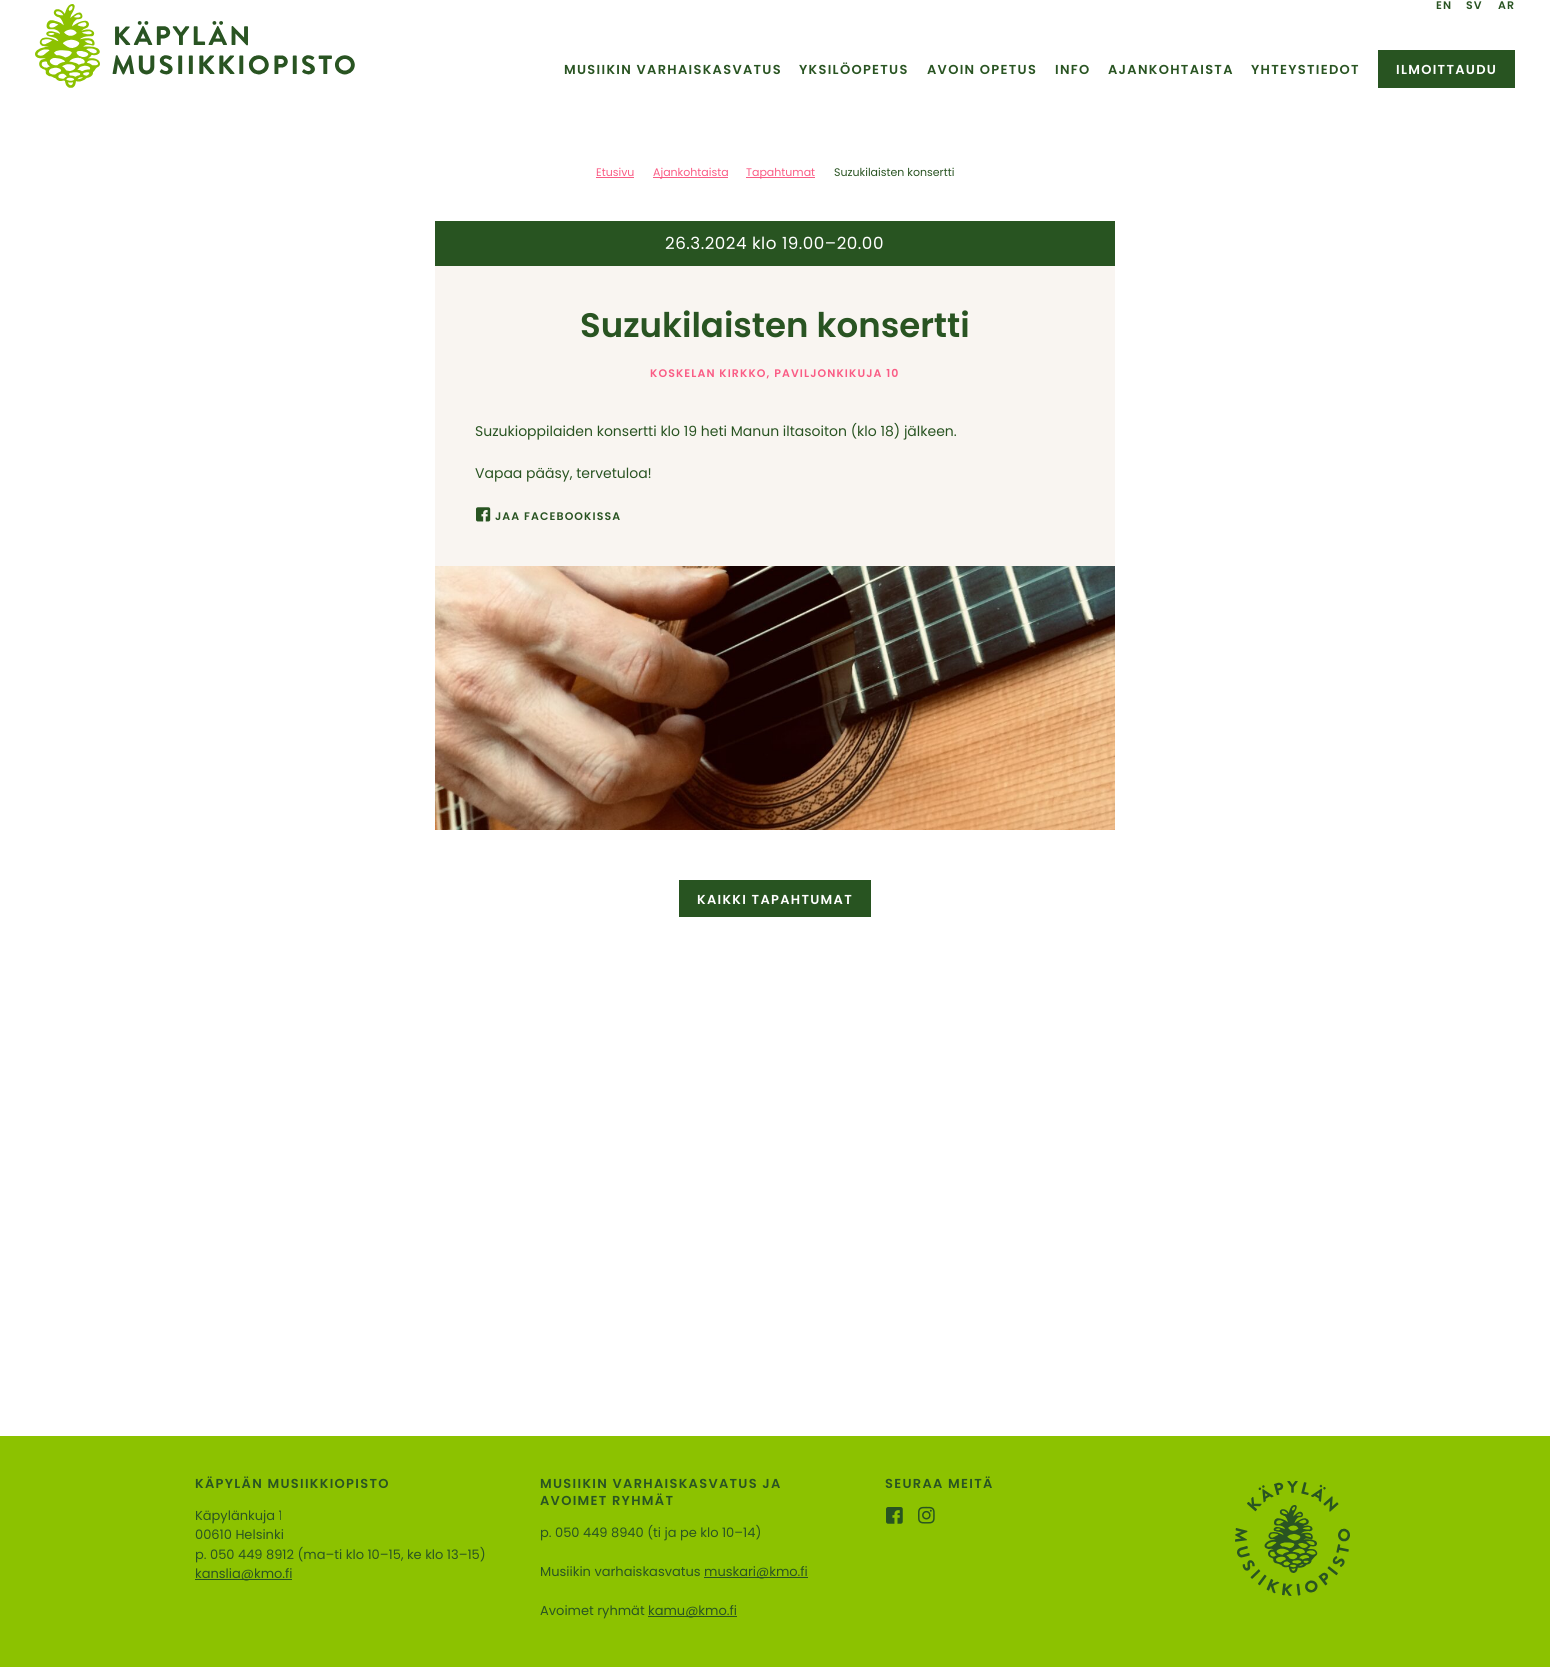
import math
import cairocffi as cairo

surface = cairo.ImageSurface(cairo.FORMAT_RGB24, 1550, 1667)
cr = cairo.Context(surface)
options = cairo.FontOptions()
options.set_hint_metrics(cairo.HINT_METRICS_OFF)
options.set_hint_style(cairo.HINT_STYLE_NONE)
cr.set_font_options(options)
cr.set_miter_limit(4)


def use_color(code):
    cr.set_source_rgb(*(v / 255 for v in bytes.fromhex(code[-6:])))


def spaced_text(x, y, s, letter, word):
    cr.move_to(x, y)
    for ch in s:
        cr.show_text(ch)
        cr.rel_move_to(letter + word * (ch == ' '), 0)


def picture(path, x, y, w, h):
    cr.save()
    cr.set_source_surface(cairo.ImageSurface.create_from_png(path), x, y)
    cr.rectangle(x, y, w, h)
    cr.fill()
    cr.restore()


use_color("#ffffff")
cr.paint()
picture("img1.png", 35, 4, 320, 84)
cr.select_font_face("Poppins SemiBold")
cr.set_font_size(11)
use_color("#295422")
spaced_text(1436, 9, "EN", 1.1, 0)
spaced_text(1466, 9, "SV", 1.1, 0)
spaced_text(1498, 9, "AR", 1.1, 0)
cr.set_font_size(13)
spaced_text(564, 74, "MUSIIKIN VARHAISKASVATUS", 1.3, 0)
spaced_text(799, 74, "YKSILÖOPETUS", 1.3, 0)
spaced_text(927, 74, "AVOIN OPETUS", 1.3, 0)
spaced_text(1055, 74, "INFO", 1.3, 0)
spaced_text(1108, 74, "AJANKOHTAISTA", 1.3, 0)
spaced_text(1251, 74, "YHTEYSTIEDOT", 1.3, 0)
use_color("#285421")
cr.rectangle(1378, 50, 137, 38)
cr.fill()
use_color("#ffffff")
spaced_text(1396, 74, "ILMOITTAUDU", 1.3, 0)
cr.select_font_face("Poppins")
cr.set_font_size(11)
use_color("#fa5c85")
cr.move_to(596, 176)
cr.show_text("Etusivu")
cr.rectangle(596, 177, 38, 1)
cr.fill()
cr.rectangle(653, 177, 75, 1)
cr.fill()
cr.move_to(653, 176)
cr.show_text("Ajankohtaista")
cr.rectangle(746, 177, 69, 1)
cr.fill()
cr.move_to(746, 176)
cr.show_text("Tapahtumat")
use_color("#295422")
cr.move_to(834, 176)
cr.show_text("Suzukilaisten konsertti")
use_color("#f9f5f1")
cr.rectangle(435, 266, 680, 300)
cr.fill()
use_color("#285421")
cr.rectangle(435, 221, 680, 45)
cr.fill()
cr.set_font_size(16.75)
use_color("#ffffff")
spaced_text(665, 249, "26.3.2024 klo 19.00–20.00", 0.5, 0)
cr.select_font_face("Poppins SemiBold")
cr.set_font_size(34)
use_color("#295422")
cr.move_to(580, 337)
cr.show_text("Suzukilaisten konsertti")
cr.set_font_size(11)
use_color("#fa5c85")
spaced_text(650, 377, "KOSKELAN KIRKKO, PAVILJONKIKUJA 10", 1.1, 0)
cr.select_font_face("Poppins")
cr.set_font_size(14)
use_color("#295422")
cr.move_to(475, 436)
cr.show_text("Suzukioppilaiden konsertti klo 19 heti Manun iltasoiton (klo 18) jälkeen.")
cr.move_to(475, 478)
cr.show_text("Vapaa pääsy, tervetuloa!")
picture("img2.png", 476, 507, 15, 15)
cr.select_font_face("Poppins SemiBold")
cr.set_font_size(11)
spaced_text(495, 520, "JAA FACEBOOKISSA", 1.1, 0)
picture("img3.png", 435, 566, 680, 264)
use_color("#285421")
cr.rectangle(679, 880, 192, 37)
cr.fill()
cr.set_font_size(13)
use_color("#ffffff")
spaced_text(697, 904, "KAIKKI TAPAHTUMAT", 1.3, 0)
use_color("#8cc200")
cr.rectangle(0, 1436, 1550, 231)
cr.fill()
use_color("#295422")
spaced_text(195, 1488, "KÄPYLÄN MUSIIKKIOPISTO", 1.3, 0)
cr.select_font_face("Poppins")
cr.move_to(195, 1520)
cr.show_text("Käpylänkuja 1")
cr.move_to(195, 1539)
cr.show_text("00610 Helsinki")
cr.move_to(195, 1559)
cr.show_text("p. 050 449 8912 (ma–ti klo 10–15, ke klo 13–15)")
cr.rectangle(195, 1579, 97, 1)
cr.fill()
cr.move_to(195, 1578)
cr.show_text("kanslia@kmo.fi")
cr.select_font_face("Poppins SemiBold")
spaced_text(540, 1488, "MUSIIKIN VARHAISKASVATUS JA", 1.3, 0)
spaced_text(540, 1505, "AVOIMET RYHMÄT", 1.3, 0)
cr.select_font_face("Poppins")
cr.move_to(540, 1537)
cr.show_text("p. 050 449 8940 (ti ja pe klo 10–14)")
cr.move_to(540, 1576)
cr.show_text("Musiikin varhaiskasvatus")
cr.rectangle(704, 1577, 104, 1)
cr.fill()
cr.move_to(704, 1576)
cr.show_text("muskari@kmo.fi")
cr.move_to(540, 1615)
cr.show_text("Avoimet ryhmät")
cr.rectangle(648, 1616, 89, 1)
cr.fill()
cr.move_to(648, 1615)
cr.show_text("kamu@kmo.fi")
cr.select_font_face("Poppins SemiBold")
spaced_text(885, 1488, "SEURAA MEITÄ", 1.3, 0)
picture("img4.png", 886, 1507, 17, 17)
picture("img5.png", 918, 1506, 17, 18)
picture("img6.png", 1235, 1481, 115, 115)
surface.write_to_png("result.png")
